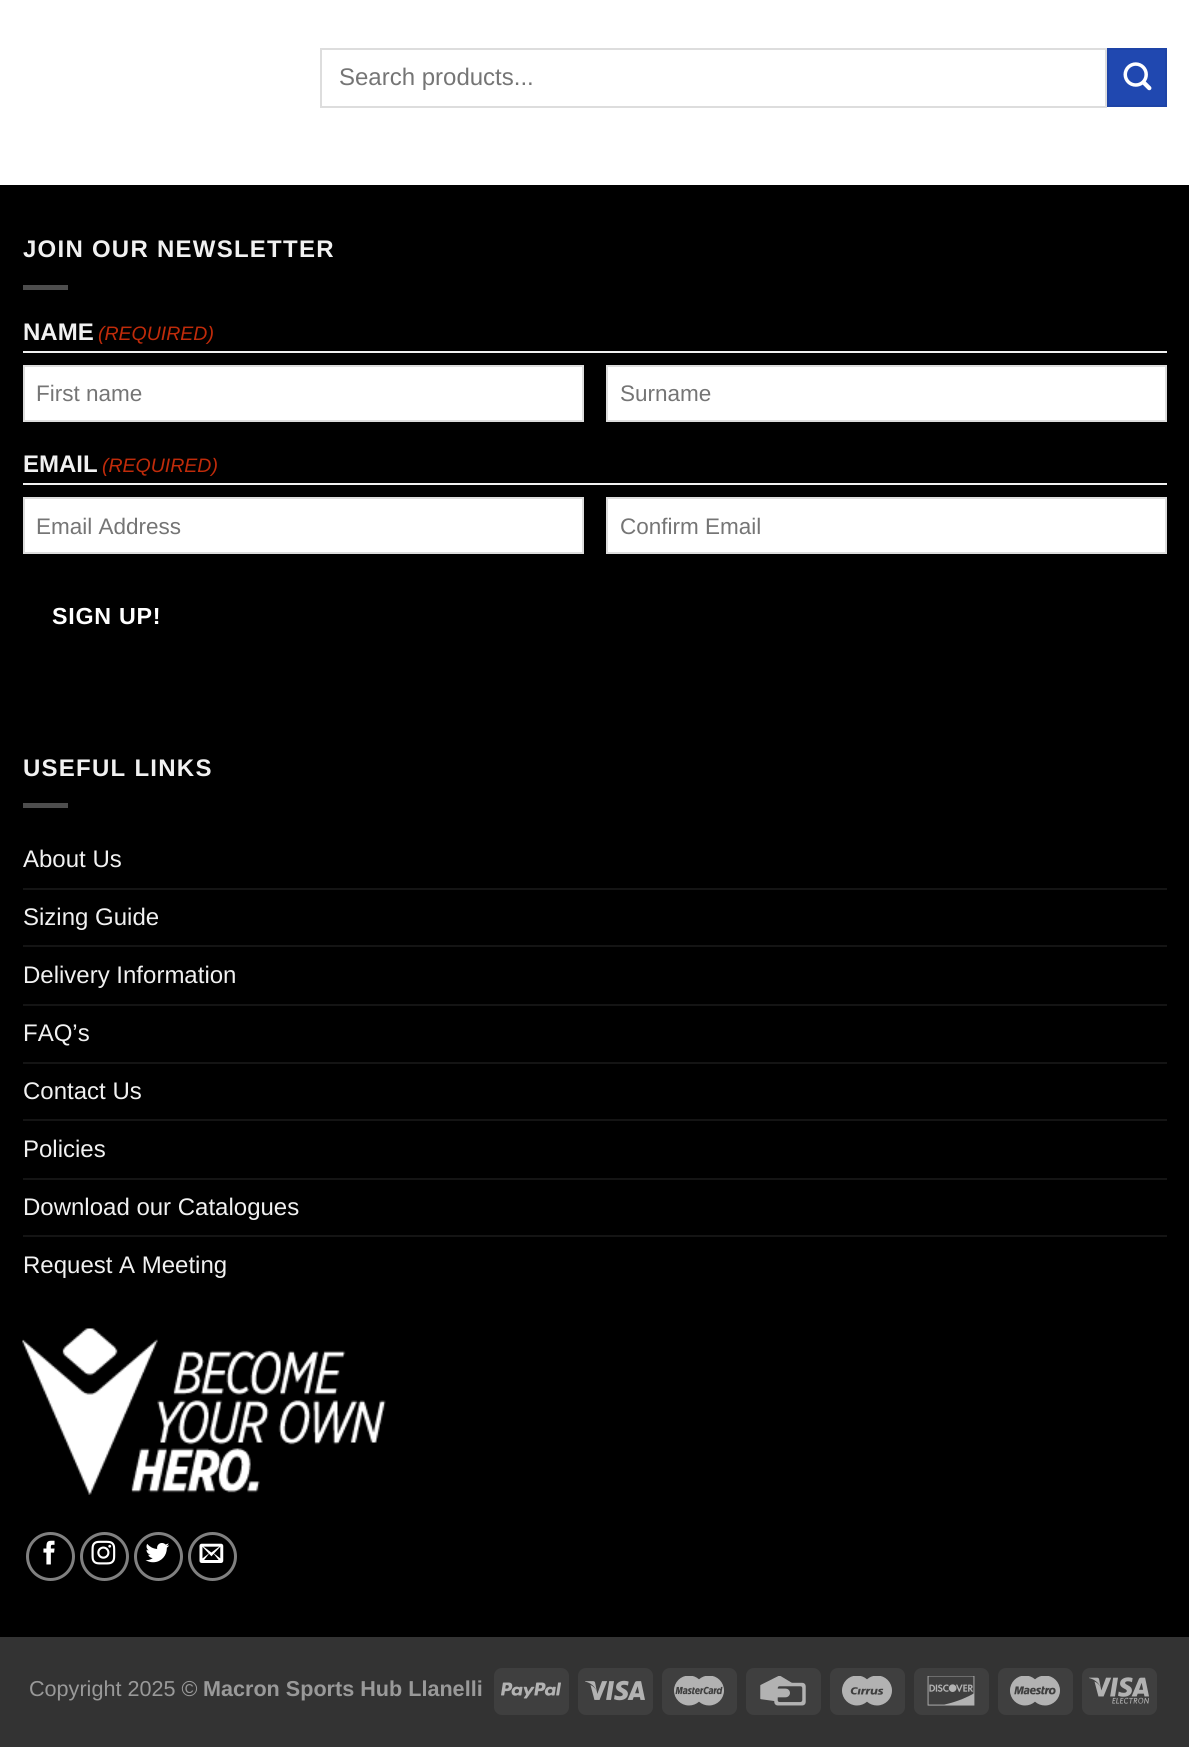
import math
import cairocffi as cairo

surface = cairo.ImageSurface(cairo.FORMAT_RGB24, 1189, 1747)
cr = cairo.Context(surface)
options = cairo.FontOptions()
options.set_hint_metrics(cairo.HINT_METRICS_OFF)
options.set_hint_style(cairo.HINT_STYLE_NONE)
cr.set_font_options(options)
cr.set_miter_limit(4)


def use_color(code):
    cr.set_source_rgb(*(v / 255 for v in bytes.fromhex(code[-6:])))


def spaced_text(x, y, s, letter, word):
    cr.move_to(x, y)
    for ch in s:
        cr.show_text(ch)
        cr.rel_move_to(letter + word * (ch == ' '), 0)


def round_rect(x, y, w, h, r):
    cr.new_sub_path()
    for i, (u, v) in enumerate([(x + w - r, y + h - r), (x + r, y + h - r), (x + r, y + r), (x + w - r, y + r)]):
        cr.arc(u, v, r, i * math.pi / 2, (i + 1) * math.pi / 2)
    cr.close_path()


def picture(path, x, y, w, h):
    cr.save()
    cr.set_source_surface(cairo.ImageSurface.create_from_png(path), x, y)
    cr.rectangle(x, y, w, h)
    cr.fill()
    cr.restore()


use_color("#ffffff")
cr.paint()
cr.rectangle(321, 49, 785, 58)
use_color("#dddddd")
cr.stroke()
cr.select_font_face("Liberation Sans")
cr.set_font_size(24)
use_color("#757575")
cr.move_to(339, 85)
cr.show_text("Search products...")
use_color("#2048b0")
cr.rectangle(1108, 49, 58, 57)
cr.fill_preserve()
use_color("#1e44a7")
cr.stroke()
picture("img1.png", 1123, 62, 29, 29)
use_color("#000000")
cr.rectangle(0, 185, 1189, 1452)
cr.fill()
cr.select_font_face("Liberation Sans", cairo.FONT_SLANT_NORMAL, cairo.FONT_WEIGHT_BOLD)
use_color("#f1f1f1")
spaced_text(23, 257, "JOIN OUR NEWSLETTER", 1.25, 0)
use_color("#4d4d4d")
cr.rectangle(23, 285, 45, 5)
cr.fill()
use_color("#f1f1f1")
cr.rectangle(23, 351, 1144, 2)
cr.fill()
cr.move_to(23, 340)
cr.show_text("NAME")
cr.select_font_face("Liberation Sans", cairo.FONT_SLANT_ITALIC)
cr.set_font_size(19.5)
use_color("#c02b0a")
cr.move_to(98, 340)
cr.show_text("(REQUIRED)")
use_color("#ffffff")
cr.rectangle(24, 366, 559, 55)
cr.fill_preserve()
use_color("#dddddd")
cr.stroke()
cr.select_font_face("Liberation Sans")
cr.set_font_size(22.5)
use_color("#757575")
cr.move_to(36, 401)
cr.show_text("First name")
use_color("#ffffff")
cr.rectangle(607, 366, 559, 55)
cr.fill_preserve()
use_color("#dddddd")
cr.stroke()
use_color("#757575")
cr.move_to(620, 401)
cr.show_text("Surname")
use_color("#f1f1f1")
cr.rectangle(23, 483, 1144, 2)
cr.fill()
cr.select_font_face("Liberation Sans", cairo.FONT_SLANT_NORMAL, cairo.FONT_WEIGHT_BOLD)
cr.set_font_size(24)
cr.move_to(23, 472)
cr.show_text("EMAIL")
cr.select_font_face("Liberation Sans", cairo.FONT_SLANT_ITALIC)
cr.set_font_size(19.5)
use_color("#c02b0a")
cr.move_to(102, 472)
cr.show_text("(REQUIRED)")
use_color("#ffffff")
cr.rectangle(24, 498, 559, 55)
cr.fill_preserve()
use_color("#dddddd")
cr.stroke()
cr.select_font_face("Liberation Sans")
cr.set_font_size(22.5)
use_color("#757575")
cr.move_to(36, 534)
cr.show_text("Email Address")
use_color("#ffffff")
cr.rectangle(607, 498, 559, 55)
cr.fill_preserve()
use_color("#dddddd")
cr.stroke()
use_color("#757575")
cr.move_to(620, 534)
cr.show_text("Confirm Email")
cr.select_font_face("Liberation Sans", cairo.FONT_SLANT_NORMAL, cairo.FONT_WEIGHT_BOLD)
cr.set_font_size(23.25)
use_color("#ffffff")
spaced_text(52, 624, "SIGN UP!", 0.75, 0)
cr.set_font_size(24)
use_color("#f1f1f1")
spaced_text(23, 776, "USEFUL LINKS", 1.25, 0)
use_color("#4d4d4d")
cr.rectangle(23, 803, 45, 5)
cr.fill()
cr.select_font_face("Liberation Sans")
use_color("#f1f1f1")
cr.move_to(23, 867)
cr.show_text("About Us")
use_color("#141414")
cr.rectangle(23, 888, 1144, 2)
cr.fill()
use_color("#f1f1f1")
cr.move_to(23, 925)
cr.show_text("Sizing Guide")
use_color("#141414")
cr.rectangle(23, 945, 1144, 2)
cr.fill()
use_color("#f1f1f1")
cr.move_to(23, 983)
cr.show_text("Delivery Information")
use_color("#141414")
cr.rectangle(23, 1004, 1144, 2)
cr.fill()
use_color("#f1f1f1")
cr.move_to(23, 1041)
cr.show_text("FAQ’s")
use_color("#141414")
cr.rectangle(23, 1062, 1144, 2)
cr.fill()
use_color("#f1f1f1")
cr.move_to(23, 1099)
cr.show_text("Contact Us")
use_color("#141414")
cr.rectangle(23, 1119, 1144, 2)
cr.fill()
use_color("#f1f1f1")
cr.move_to(23, 1157)
cr.show_text("Policies")
use_color("#141414")
cr.rectangle(23, 1178, 1144, 2)
cr.fill()
use_color("#f1f1f1")
cr.move_to(23, 1215)
cr.show_text("Download our Catalogues")
use_color("#141414")
cr.rectangle(23, 1235, 1144, 2)
cr.fill()
use_color("#f1f1f1")
cr.move_to(23, 1273)
cr.show_text("Request A Meeting")
picture("img2.png", 22, 1328, 364, 167)
cr.arc(50.5, 1556.5, 23, 0, 2 * math.pi)
use_color("#808080")
cr.set_line_width(3)
cr.stroke()
picture("img3.png", 43, 1540, 12, 25)
cr.arc(104.5, 1556.5, 23, 0, 2 * math.pi)
cr.stroke()
picture("img4.png", 91, 1540, 25, 25)
cr.arc(158.5, 1556.5, 23, 0, 2 * math.pi)
cr.stroke()
picture("img5.png", 145, 1543, 25, 20)
cr.arc(212.5, 1556.5, 23, 0, 2 * math.pi)
cr.stroke()
picture("img6.png", 199, 1543, 25, 20)
use_color("#333333")
cr.rectangle(0, 1637, 1189, 110)
cr.fill()
cr.set_font_size(21.6)
use_color("#999999")
cr.move_to(29, 1696)
cr.show_text("Copyright 2025 ©")
cr.select_font_face("Liberation Sans", cairo.FONT_SLANT_NORMAL, cairo.FONT_WEIGHT_BOLD)
cr.move_to(203, 1696)
cr.show_text("Macron Sports Hub Llanelli")
use_color("#3f3f3f")
round_rect(494, 1668, 75, 47, 8)
cr.fill()
picture("img7.png", 501, 1682, 60, 17)
round_rect(578, 1668, 75, 47, 8)
cr.fill()
picture("img8.png", 585, 1680, 60, 21)
round_rect(662, 1668, 75, 47, 8)
cr.fill()
picture("img9.png", 674, 1676, 50, 30)
round_rect(746, 1668, 75, 47, 8)
cr.fill()
picture("img10.png", 760, 1676, 46, 30)
round_rect(830, 1668, 75, 47, 8)
cr.fill()
picture("img11.png", 842, 1676, 50, 30)
round_rect(914, 1668, 75, 47, 8)
cr.fill()
picture("img12.png", 927, 1676, 48, 30)
round_rect(998, 1668, 75, 47, 8)
cr.fill()
picture("img13.png", 1010, 1676, 50, 30)
round_rect(1082, 1668, 75, 47, 8)
cr.fill()
picture("img14.png", 1089, 1677, 60, 27)
surface.write_to_png("result.png")
